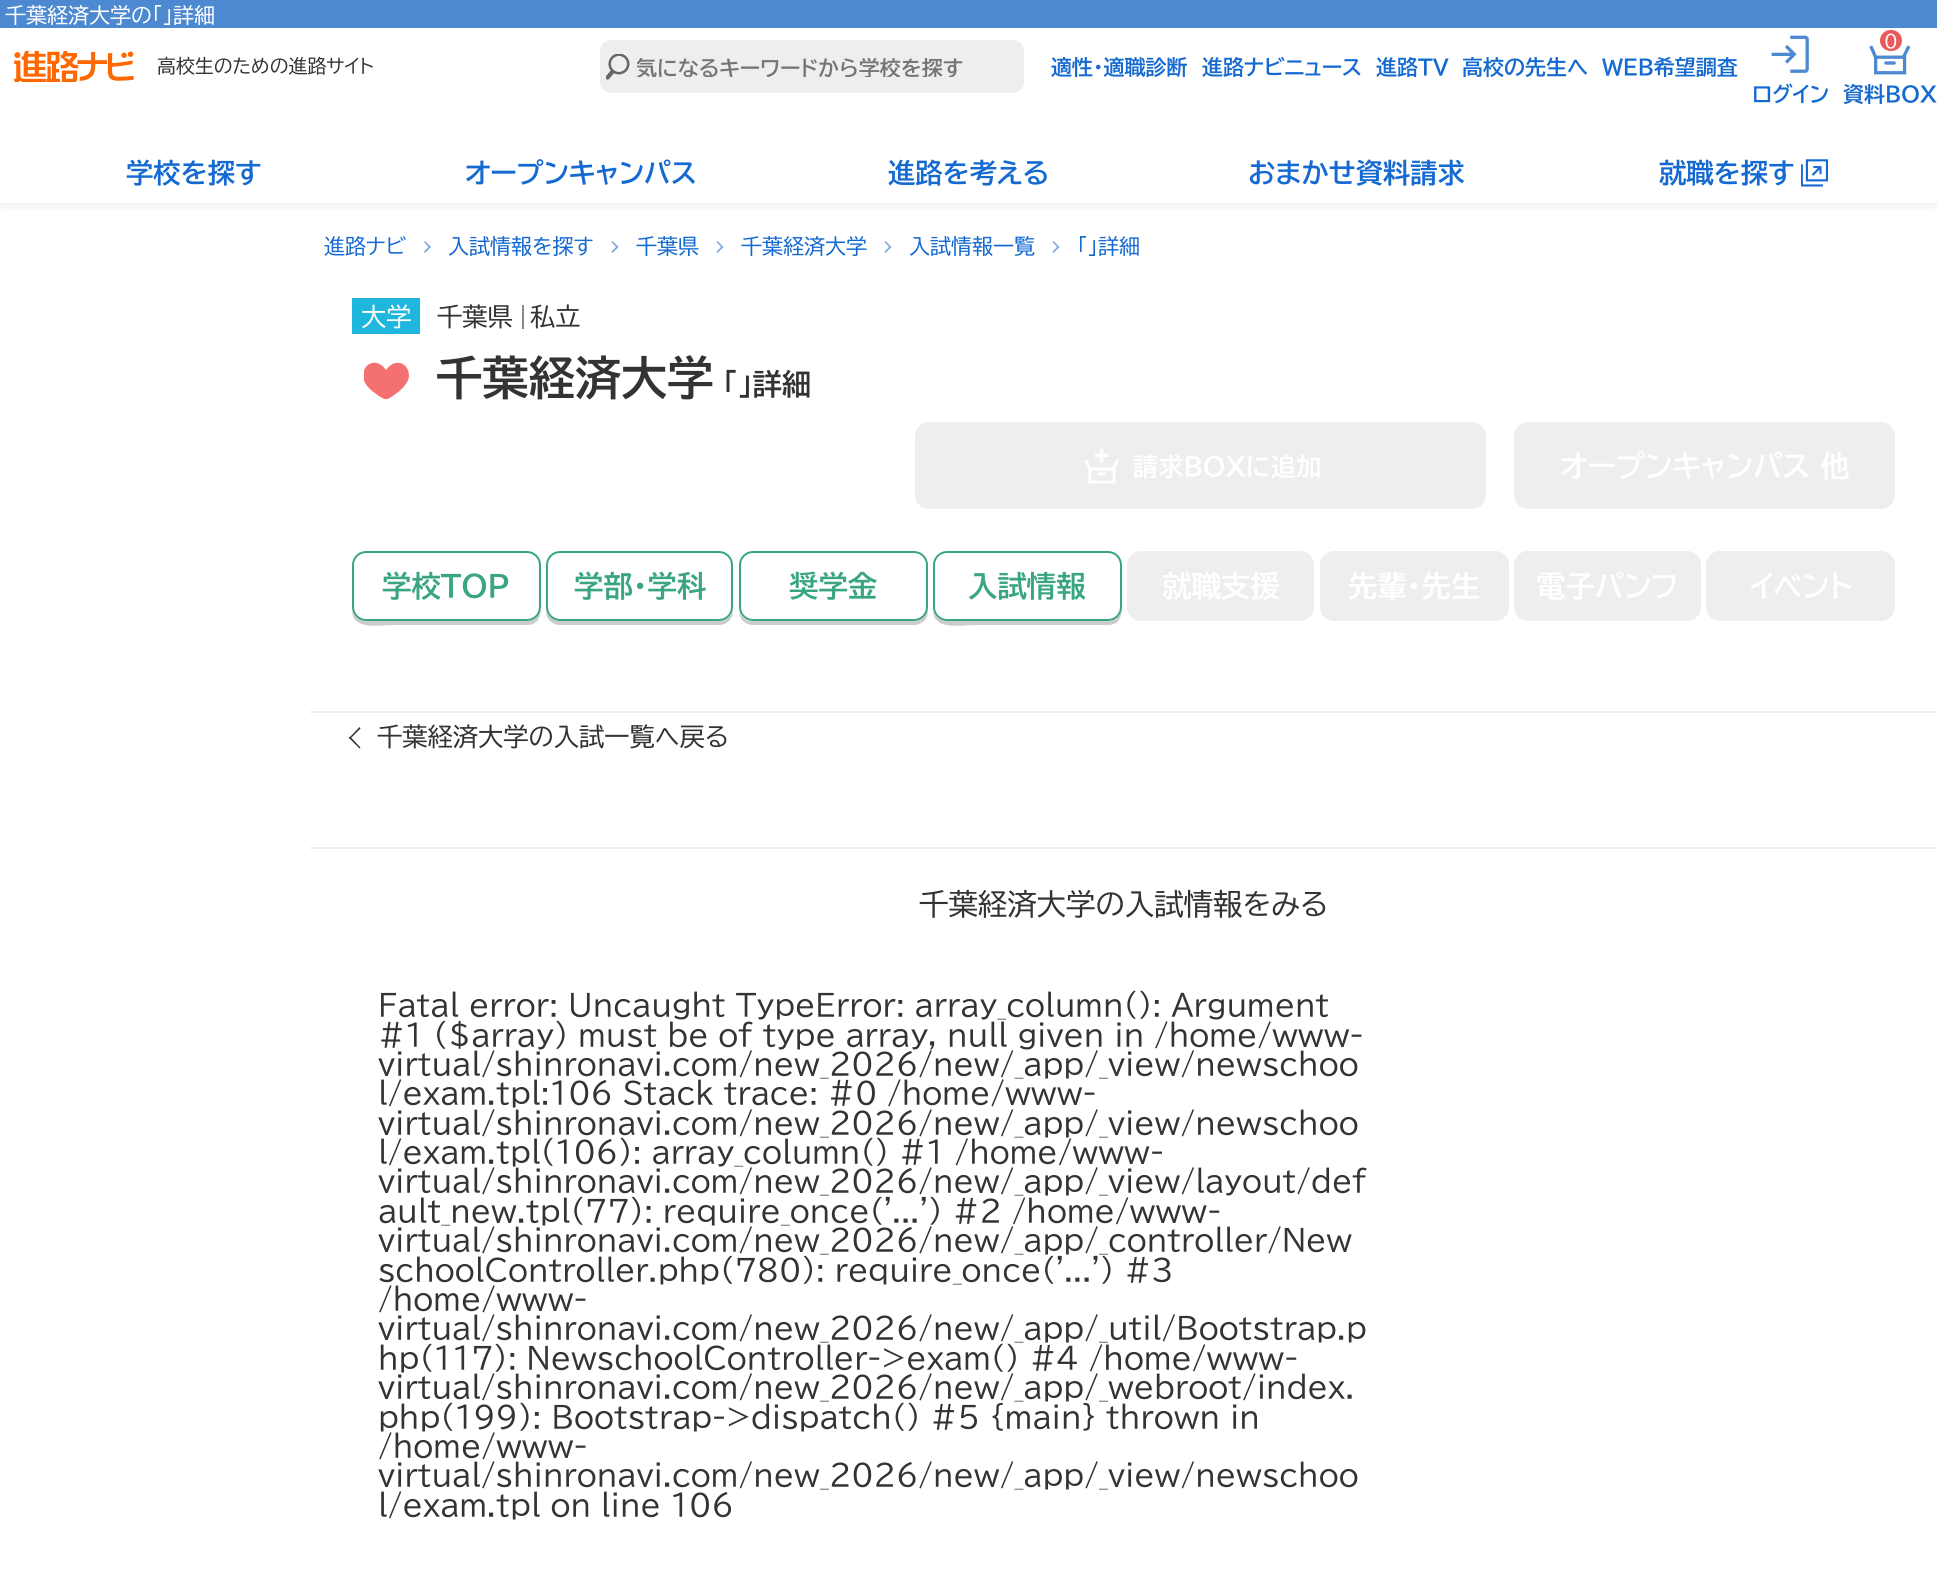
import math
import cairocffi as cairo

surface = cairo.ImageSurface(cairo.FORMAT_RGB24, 1937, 1596)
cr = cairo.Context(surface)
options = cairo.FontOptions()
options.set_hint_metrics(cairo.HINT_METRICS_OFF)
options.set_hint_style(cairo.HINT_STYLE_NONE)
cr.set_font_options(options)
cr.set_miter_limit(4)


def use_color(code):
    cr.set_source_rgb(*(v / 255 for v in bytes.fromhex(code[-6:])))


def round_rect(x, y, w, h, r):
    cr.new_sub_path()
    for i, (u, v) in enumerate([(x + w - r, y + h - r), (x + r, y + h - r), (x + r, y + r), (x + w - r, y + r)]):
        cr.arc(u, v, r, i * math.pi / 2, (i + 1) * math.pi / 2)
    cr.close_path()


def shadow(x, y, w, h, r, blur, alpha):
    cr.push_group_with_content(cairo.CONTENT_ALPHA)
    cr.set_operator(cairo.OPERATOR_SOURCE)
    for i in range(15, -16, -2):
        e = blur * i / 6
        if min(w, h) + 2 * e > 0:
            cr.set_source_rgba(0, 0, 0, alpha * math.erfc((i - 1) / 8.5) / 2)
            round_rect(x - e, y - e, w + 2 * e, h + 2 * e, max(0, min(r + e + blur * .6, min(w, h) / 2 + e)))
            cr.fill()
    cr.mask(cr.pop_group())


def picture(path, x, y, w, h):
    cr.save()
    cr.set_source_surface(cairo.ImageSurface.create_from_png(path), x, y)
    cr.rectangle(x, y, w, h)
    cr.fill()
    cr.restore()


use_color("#ffffff")
cr.paint()
cr.save()
cr.rectangle(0, 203, 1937, 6)
cr.clip()
use_color("#000000")
shadow(0, 0, 1937, 203, 0, 7, 0.1)
cr.restore()
use_color("#4d89d1")
cr.rectangle(0, 0, 1937, 28)
cr.fill()
cr.select_font_face("BIZ UDPGothic")
cr.set_font_size(21)
use_color("#ffffff")
cr.move_to(5, 23)
cr.show_text("千葉経済大学の「」詳細")
picture("img1.png", 14, 51, 120, 31)
cr.set_font_size(18.9)
use_color("#333333")
cr.move_to(157, 73)
cr.show_text("高校生のための進路サイト")
use_color("#eeeeee")
round_rect(600, 40, 424, 53, 11)
cr.fill()
picture("img2.png", 606, 54, 24, 26)
cr.save()
cr.rectangle(637, 56, 366, 21)
cr.clip()
cr.select_font_face("BIZ UDPGothic", cairo.FONT_SLANT_NORMAL, cairo.FONT_WEIGHT_BOLD)
cr.set_font_size(21)
use_color("#757575")
cr.move_to(636, 76)
cr.show_text("気になるキーワードから学校を探す")
cr.restore()
cr.select_font_face("BIZ UDPGothic", cairo.FONT_SLANT_NORMAL, cairo.FONT_WEIGHT_BOLD)
cr.set_font_size(21)
use_color("#156ad1")
cr.move_to(1051, 75)
cr.show_text("適性・適職診断")
cr.move_to(1202, 75)
cr.show_text("進路ナビニュース")
cr.move_to(1376, 75)
cr.show_text("進路TV")
cr.move_to(1462, 75)
cr.show_text("高校の先生へ")
cr.move_to(1602, 75)
cr.show_text("WEB希望調査")
picture("img3.png", 1869, 45, 42, 30)
use_color("#ea5a5a")
round_rect(1880, 30, 22, 21, 10.5)
cr.fill()
cr.select_font_face("BIZ UDPGothic")
cr.set_font_size(18)
use_color("#ffffff")
cr.move_to(1884, 48)
cr.show_text("0")
cr.select_font_face("BIZ UDPGothic", cairo.FONT_SLANT_NORMAL, cairo.FONT_WEIGHT_BOLD)
cr.set_font_size(21)
use_color("#156ad1")
cr.move_to(1843, 102)
cr.show_text("資料BOX")
picture("img4.png", 1771, 35, 38, 38)
cr.move_to(1752, 102)
cr.show_text("ログイン")
cr.set_font_size(27.25)
cr.move_to(126, 183)
cr.show_text("学校を探す")
cr.move_to(465, 183)
cr.show_text("オープンキャンパス")
cr.move_to(888, 183)
cr.show_text("進路を考える")
cr.move_to(1248, 183)
cr.show_text("おまかせ資料請求")
picture("img5.png", 1801, 159, 28, 28)
cr.move_to(1659, 183)
cr.show_text("就職を探す")
cr.select_font_face("BIZ UDPGothic")
cr.set_font_size(21)
cr.move_to(324, 254)
cr.show_text("進路ナビ")
use_color("#7aa7dd")
cr.new_path()
cr.move_to(425, 241)
cr.line_to(431, 247)
cr.line_to(428.5, 247)
cr.line_to(424, 242)
cr.close_path()
cr.move_to(431, 247)
cr.line_to(425, 253)
cr.line_to(424, 251.5)
cr.line_to(428.5, 247)
cr.close_path()
cr.fill()
use_color("#156ad1")
cr.move_to(448, 254)
cr.show_text("入試情報を探す")
use_color("#7aa7dd")
cr.new_path()
cr.move_to(612.5, 241)
cr.line_to(618.5, 247)
cr.line_to(616, 247)
cr.line_to(611.5, 242)
cr.close_path()
cr.move_to(618.5, 247)
cr.line_to(612.5, 253)
cr.line_to(611.5, 251.5)
cr.line_to(616, 247)
cr.close_path()
cr.fill()
use_color("#156ad1")
cr.move_to(636, 254)
cr.show_text("千葉県")
use_color("#7aa7dd")
cr.new_path()
cr.move_to(717.5, 241)
cr.line_to(723.5, 247)
cr.line_to(721, 247)
cr.line_to(716.5, 242)
cr.close_path()
cr.move_to(723.5, 247)
cr.line_to(717.5, 253)
cr.line_to(716.5, 251.5)
cr.line_to(721, 247)
cr.close_path()
cr.fill()
use_color("#156ad1")
cr.move_to(741, 254)
cr.show_text("千葉経済大学")
use_color("#7aa7dd")
cr.new_path()
cr.move_to(885.5, 241)
cr.line_to(891.5, 247)
cr.line_to(889, 247)
cr.line_to(884.5, 242)
cr.close_path()
cr.move_to(891.5, 247)
cr.line_to(885.5, 253)
cr.line_to(884.5, 251.5)
cr.line_to(889, 247)
cr.close_path()
cr.fill()
use_color("#156ad1")
cr.move_to(909, 254)
cr.show_text("入試情報一覧")
use_color("#7aa7dd")
cr.new_path()
cr.move_to(1053.5, 241)
cr.line_to(1059.5, 247)
cr.line_to(1057, 247)
cr.line_to(1052.5, 242)
cr.close_path()
cr.move_to(1059.5, 247)
cr.line_to(1053.5, 253)
cr.line_to(1052.5, 251.5)
cr.line_to(1057, 247)
cr.close_path()
cr.fill()
use_color("#156ad1")
cr.move_to(1077, 254)
cr.show_text("「」詳細")
use_color("#1eb6dd")
cr.rectangle(352, 298, 68, 36)
cr.fill()
cr.set_font_size(25.25)
use_color("#ffffff")
cr.move_to(361, 326)
cr.show_text("大学")
use_color("#333333")
cr.move_to(437, 326)
cr.show_text("千葉県")
use_color("#888888")
cr.rectangle(522, 305, 2, 24)
cr.fill()
use_color("#333333")
cr.move_to(530, 326)
cr.show_text("私立")
cr.save()
cr.rectangle(364, 362, 46, 37)
cr.clip()
use_color("#f57171")
cr.set_fill_rule(cairo.FILL_RULE_EVEN_ODD)
cr.new_path()
cr.move_to(386, 370)
cr.curve_to(377, 357, 363, 363, 363, 376)
cr.curve_to(363, 389, 386, 400, 386, 400)
cr.curve_to(386, 400, 408, 389, 409, 376)
cr.curve_to(409, 363, 395, 357, 386, 370)
cr.fill()
cr.restore()
cr.select_font_face("BIZ UDPGothic", cairo.FONT_SLANT_NORMAL, cairo.FONT_WEIGHT_BOLD)
cr.set_font_size(46.25)
cr.move_to(436, 395)
cr.show_text("千葉経済大学")
cr.set_font_size(29.4)
cr.move_to(723, 395)
cr.show_text("「」詳細")
use_color("#eeeeee")
round_rect(915, 422, 571, 87, 14)
cr.fill()
picture("img6.png", 1084, 448, 35, 36)
cr.set_font_size(25.25)
use_color("#ffffff")
cr.move_to(1133, 476)
cr.show_text("請求BOXに追加")
use_color("#eeeeee")
round_rect(1514, 422, 381, 87, 14)
cr.fill()
cr.set_font_size(29.4)
use_color("#ffffff")
cr.move_to(1560, 477)
cr.show_text("オープンキャンパス 他")
use_color("#cccccc")
cr.new_path()
cr.move_to(352, 610)
cr.curve_to(352, 631, 380, 625, 393, 625)
cr.line_to(527, 625)
cr.curve_to(543, 625, 541, 608, 541, 597)
cr.line_to(541, 566)
cr.line_to(541, 607)
cr.curve_to(541, 615, 534, 621, 527, 621)
cr.line_to(366, 621)
cr.curve_to(359, 621, 353, 616, 352, 610)
cr.close_path()
cr.fill()
round_rect(353, 552, 187, 68, 13)
use_color("#3aa581")
cr.stroke()
cr.move_to(382, 597)
cr.show_text("学校TOP")
use_color("#cccccc")
cr.new_path()
cr.move_to(546, 607)
cr.line_to(546, 611)
cr.curve_to(546, 619, 552, 625, 560, 625)
cr.line_to(719, 625)
cr.curve_to(727, 625, 733, 619, 733, 611)
cr.line_to(733, 610)
cr.curve_to(732, 616, 726, 621, 719, 621)
cr.line_to(560, 621)
cr.curve_to(552, 621, 546, 615, 546, 607)
cr.close_path()
cr.fill()
round_rect(547, 552, 185, 68, 13)
use_color("#3aa581")
cr.stroke()
cr.move_to(574, 597)
cr.show_text("学部・学科")
use_color("#cccccc")
cr.new_path()
cr.move_to(739, 611)
cr.curve_to(739, 619, 745, 625, 753, 625)
cr.line_to(914, 625)
cr.curve_to(922, 625, 928, 619, 928, 611)
cr.line_to(928, 569)
cr.line_to(928, 565)
cr.line_to(928, 607)
cr.curve_to(928, 615, 921, 621, 914, 621)
cr.line_to(752, 621)
cr.curve_to(746, 621, 741, 617, 739, 611)
cr.close_path()
cr.fill()
round_rect(740, 552, 187, 68, 13)
use_color("#3aa581")
cr.stroke()
cr.move_to(789, 597)
cr.show_text("奨学金")
use_color("#cccccc")
cr.new_path()
cr.move_to(933, 610)
cr.curve_to(933, 631, 961, 625, 974, 625)
cr.line_to(1108, 625)
cr.curve_to(1124, 625, 1122, 608, 1122, 597)
cr.line_to(1122, 566)
cr.line_to(1122, 607)
cr.curve_to(1122, 615, 1115, 621, 1108, 621)
cr.line_to(947, 621)
cr.curve_to(940, 621, 934, 616, 933, 610)
cr.close_path()
cr.fill()
round_rect(934, 552, 187, 68, 13)
use_color("#3aa581")
cr.stroke()
cr.move_to(968, 597)
cr.show_text("入試情報")
use_color("#eeeeee")
round_rect(1128, 552, 185, 68, 13)
cr.fill_preserve()
cr.stroke()
use_color("#ffffff")
cr.move_to(1162, 597)
cr.show_text("就職支援")
use_color("#eeeeee")
round_rect(1321, 552, 187, 68, 13)
cr.fill_preserve()
cr.stroke()
use_color("#ffffff")
cr.move_to(1348, 597)
cr.show_text("先輩・先生")
use_color("#eeeeee")
round_rect(1515, 552, 185, 68, 13)
cr.fill_preserve()
cr.stroke()
use_color("#ffffff")
cr.move_to(1536, 597)
cr.show_text("電子パンフ")
use_color("#eeeeee")
round_rect(1707, 552, 187, 68, 13)
cr.fill_preserve()
cr.stroke()
use_color("#ffffff")
cr.move_to(1750, 597)
cr.show_text("イベント")
use_color("#efefef")
cr.rectangle(310, 711, 1627, 2)
cr.fill()
use_color("#333333")
cr.new_path()
cr.move_to(350, 736.5)
cr.line_to(360.5, 747.5)
cr.line_to(359.5, 748.5)
cr.line_to(349, 738)
cr.close_path()
cr.fill()
cr.new_path()
cr.move_to(359.5, 727)
cr.line_to(360.5, 728.5)
cr.line_to(350, 739)
cr.line_to(349, 738)
cr.close_path()
cr.fill()
cr.select_font_face("BIZ UDPGothic")
cr.set_font_size(25.25)
cr.move_to(377, 746)
cr.show_text("千葉経済大学の入試一覧へ戻る")
use_color("#efefef")
cr.rectangle(310, 847, 1627, 2)
cr.fill()
cr.set_font_size(29.4)
use_color("#333333")
cr.move_to(919, 915)
cr.show_text("千葉経済大学の入試情報をみる")
cr.move_to(378, 1016)
cr.show_text("Fatal error:")
cr.move_to(568, 1016)
cr.show_text("Uncaught TypeError: array_column(): Argument")
cr.move_to(378, 1046)
cr.show_text("#1 ($array) must be of type array, null given in /home/www-")
cr.move_to(378, 1075)
cr.show_text("virtual/shinronavi.com/new_2026/new/_app/_view/newschoo")
cr.move_to(378, 1104)
cr.show_text("l/exam.tpl:106 Stack trace: #0 /home/www-")
cr.move_to(378, 1134)
cr.show_text("virtual/shinronavi.com/new_2026/new/_app/_view/newschoo")
cr.move_to(378, 1163)
cr.show_text("l/exam.tpl(106): array_column() #1 /home/www-")
cr.move_to(378, 1192)
cr.show_text("virtual/shinronavi.com/new_2026/new/_app/_view/layout/def")
cr.move_to(378, 1222)
cr.show_text("ault_new.tpl(77): require_once('...') #2 /home/www-")
cr.move_to(378, 1251)
cr.show_text("virtual/shinronavi.com/new_2026/new/_app/_controller/New")
cr.move_to(378, 1281)
cr.show_text("schoolController.php(780): require_once('...') #3")
cr.move_to(378, 1310)
cr.show_text("/home/www-")
cr.move_to(378, 1339)
cr.show_text("virtual/shinronavi.com/new_2026/new/_app/_util/Bootstrap.p")
cr.move_to(378, 1369)
cr.show_text("hp(117): NewschoolController->exam() #4 /home/www-")
cr.move_to(378, 1398)
cr.show_text("virtual/shinronavi.com/new_2026/new/_app/_webroot/index.")
cr.move_to(378, 1428)
cr.show_text("php(199): Bootstrap->dispatch() #5 {main}")
cr.move_to(1106, 1428)
cr.show_text("thrown in")
cr.move_to(378, 1457)
cr.show_text("/home/www-")
cr.move_to(378, 1486)
cr.show_text("virtual/shinronavi.com/new_2026/new/_app/_view/newschoo")
cr.move_to(378, 1516)
cr.show_text("l/exam.tpl on line 106")
surface.write_to_png("result.png")
